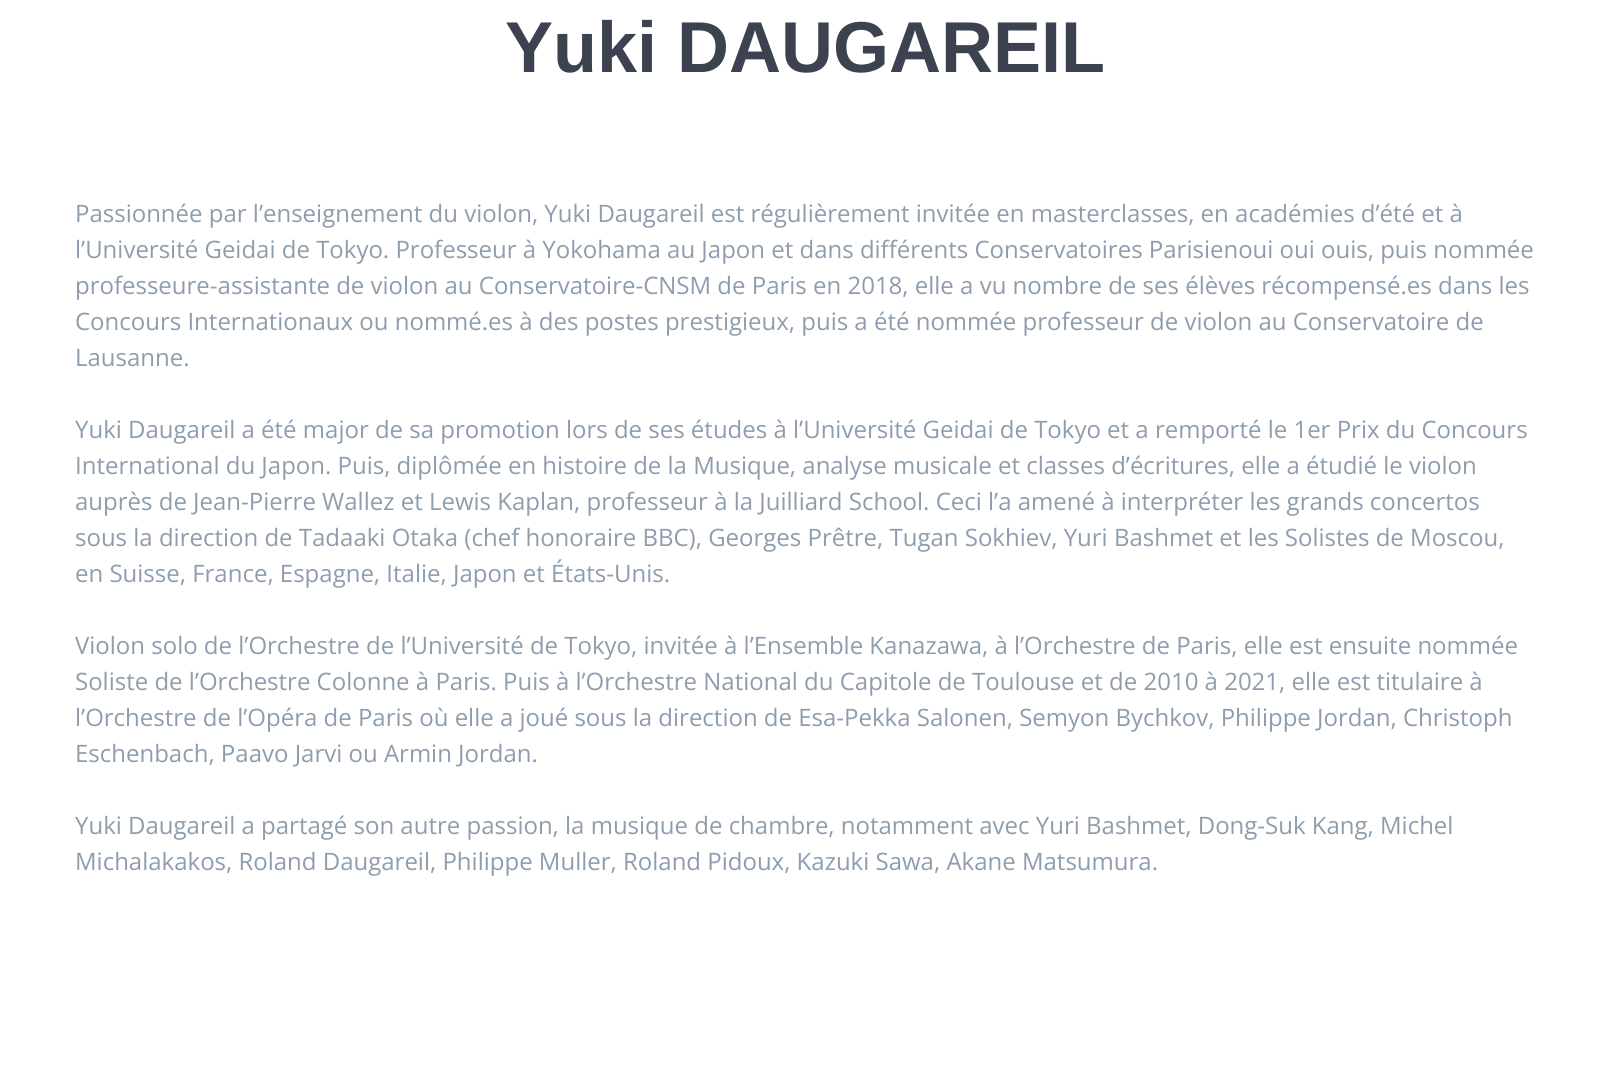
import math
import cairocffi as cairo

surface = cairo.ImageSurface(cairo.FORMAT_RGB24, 1611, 1074)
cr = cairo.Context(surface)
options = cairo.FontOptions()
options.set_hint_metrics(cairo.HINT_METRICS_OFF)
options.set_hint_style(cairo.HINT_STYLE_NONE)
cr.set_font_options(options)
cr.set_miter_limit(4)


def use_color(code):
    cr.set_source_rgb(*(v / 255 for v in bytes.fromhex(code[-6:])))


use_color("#ffffff")
cr.paint()
cr.select_font_face("Liberation Sans", cairo.FONT_SLANT_NORMAL, cairo.FONT_WEIGHT_BOLD)
cr.set_font_size(72)
use_color("#3c424f")
cr.move_to(505, 72)
cr.show_text("Yuki DAUGAREIL")
cr.select_font_face("Open Sans")
cr.set_font_size(24)
use_color("#8e9dae")
cr.move_to(75, 222)
cr.show_text("Passionnée par l’enseignement du violon, Yuki Daugareil est régulièrement invitée en masterclasses, en académies d’été et à")
cr.move_to(75, 258)
cr.show_text("l’Université Geidai de Tokyo. Professeur à Yokohama au Japon et dans différents Conservatoires Parisienoui oui ouis, puis nommée")
cr.move_to(75, 294)
cr.show_text("professeure-assistante de violon au Conservatoire-CNSM de Paris en 2018, elle a vu nombre de ses élèves récompensé.es dans les")
cr.move_to(75, 330)
cr.show_text("Concours Internationaux ou nommé.es à des postes prestigieux, puis a été nommée professeur de violon au Conservatoire de")
cr.move_to(75, 366)
cr.show_text("Lausanne.")
cr.move_to(75, 438)
cr.show_text("Yuki Daugareil a été major de sa promotion lors de ses études à l’Université Geidai de Tokyo et a remporté le 1er Prix du Concours")
cr.move_to(75, 474)
cr.show_text("International du Japon. Puis, diplômée en histoire de la Musique, analyse musicale et classes d’écritures, elle a étudié le violon")
cr.move_to(75, 510)
cr.show_text("auprès de Jean-Pierre Wallez et Lewis Kaplan, professeur à la Juilliard School. Ceci l’a amené à interpréter les grands concertos")
cr.move_to(75, 546)
cr.show_text("sous la direction de Tadaaki Otaka (chef honoraire BBC), Georges Prêtre, Tugan Sokhiev, Yuri Bashmet et les Solistes de Moscou,")
cr.move_to(75, 582)
cr.show_text("en Suisse, France, Espagne, Italie, Japon et États-Unis.")
cr.move_to(75, 654)
cr.show_text("Violon solo de l’Orchestre de l’Université de Tokyo, invitée à l’Ensemble Kanazawa, à l’Orchestre de Paris, elle est ensuite nommée")
cr.move_to(75, 690)
cr.show_text("Soliste de l’Orchestre Colonne à Paris. Puis à l’Orchestre National du Capitole de Toulouse et de 2010 à 2021, elle est titulaire à")
cr.move_to(75, 726)
cr.show_text("l’Orchestre de l’Opéra de Paris où elle a joué sous la direction de Esa-Pekka Salonen, Semyon Bychkov, Philippe Jordan, Christoph")
cr.move_to(75, 762)
cr.show_text("Eschenbach, Paavo Jarvi ou Armin Jordan.")
cr.move_to(75, 834)
cr.show_text("Yuki Daugareil a partagé son autre passion, la musique de chambre, notamment avec Yuri Bashmet, Dong-Suk Kang, Michel")
cr.move_to(75, 870)
cr.show_text("Michalakakos, Roland Daugareil, Philippe Muller, Roland Pidoux, Kazuki Sawa, Akane Matsumura.")
surface.write_to_png("result.png")
